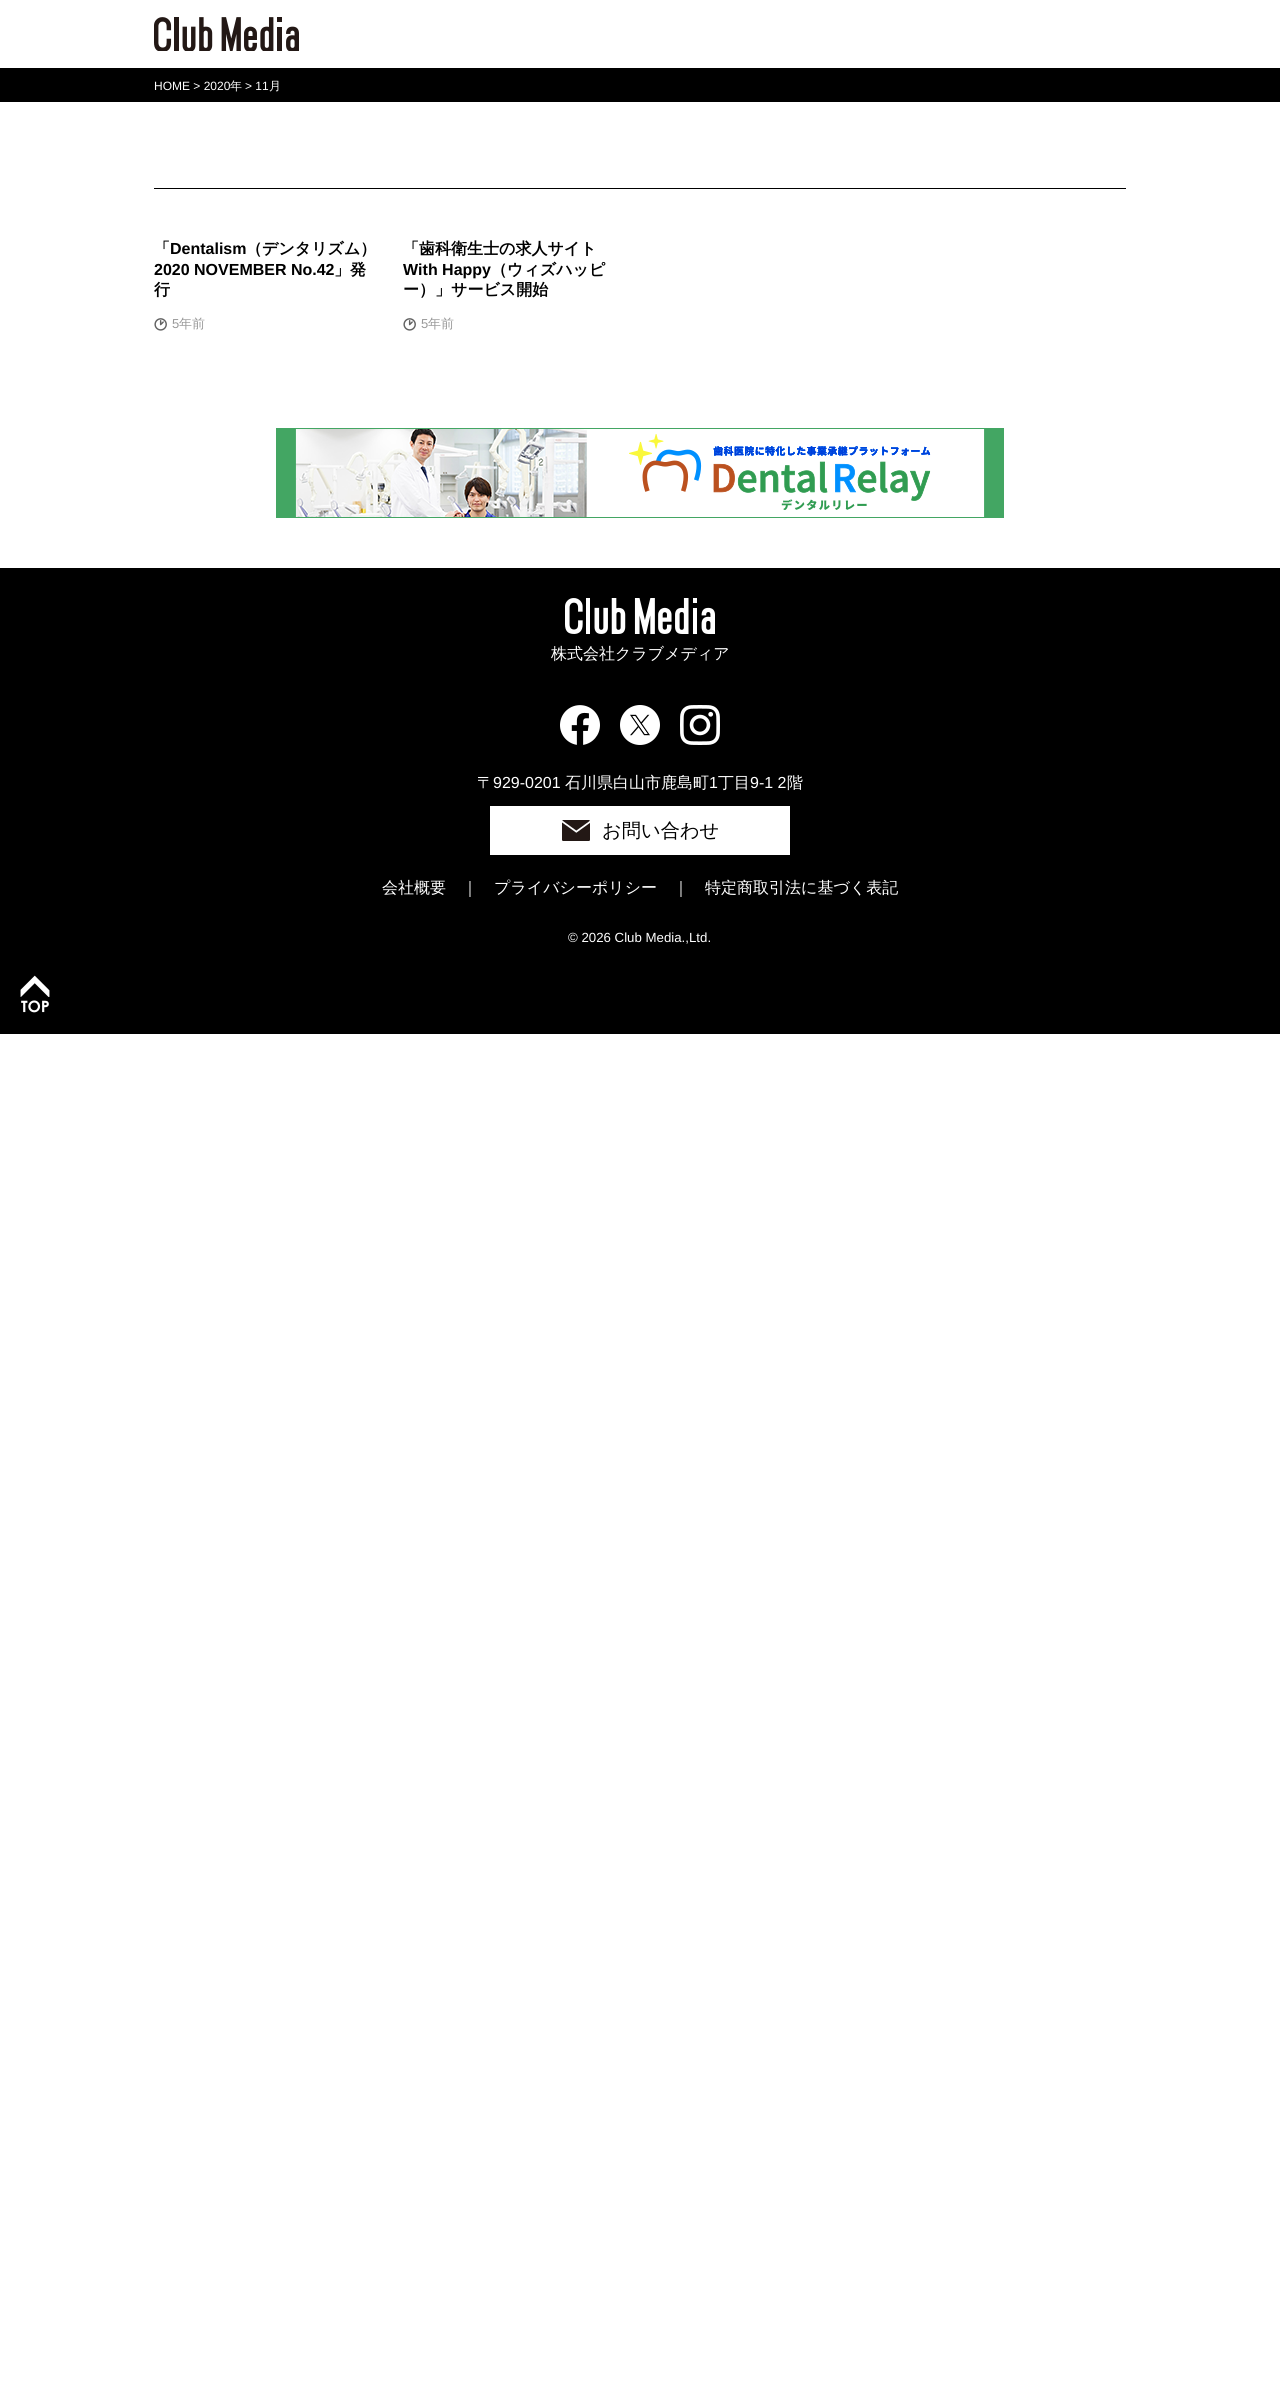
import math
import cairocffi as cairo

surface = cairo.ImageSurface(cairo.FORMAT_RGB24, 1280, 2394)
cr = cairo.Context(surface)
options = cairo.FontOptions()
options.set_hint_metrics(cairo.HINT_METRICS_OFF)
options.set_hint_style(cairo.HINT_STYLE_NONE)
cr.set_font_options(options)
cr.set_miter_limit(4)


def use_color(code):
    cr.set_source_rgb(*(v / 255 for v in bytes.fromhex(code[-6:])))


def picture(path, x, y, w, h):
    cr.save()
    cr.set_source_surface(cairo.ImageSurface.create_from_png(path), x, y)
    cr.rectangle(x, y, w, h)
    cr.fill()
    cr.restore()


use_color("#ffffff")
cr.paint()
picture("img1.png", 154, 17, 145, 34)
use_color("#000000")
cr.rectangle(0, 68, 1280, 34)
cr.fill()
cr.select_font_face("Liberation Sans")
cr.set_font_size(12)
use_color("#ffffff")
cr.move_to(154, 90)
cr.show_text("HOME > 2020")
cr.select_font_face("WenQuanYi Zen Hei Medium")
cr.move_to(230, 90)
cr.show_text("年")
cr.select_font_face("Liberation Sans")
cr.move_to(245, 90)
cr.show_text("> 11")
cr.select_font_face("WenQuanYi Zen Hei Medium")
cr.move_to(269, 90)
cr.show_text("月")
use_color("#000000")
cr.rectangle(154, 188, 972, 1)
cr.fill()
cr.select_font_face("WenQuanYi Zen Hei", cairo.FONT_SLANT_NORMAL, cairo.FONT_WEIGHT_BOLD)
cr.set_font_size(16)
cr.move_to(154, 254)
cr.show_text("「")
cr.select_font_face("Liberation Sans", cairo.FONT_SLANT_NORMAL, cairo.FONT_WEIGHT_BOLD)
cr.move_to(170, 254)
cr.show_text("Dentalism")
cr.select_font_face("WenQuanYi Zen Hei", cairo.FONT_SLANT_NORMAL, cairo.FONT_WEIGHT_BOLD)
cr.move_to(246, 254)
cr.show_text("（デンタリズム）")
cr.select_font_face("Liberation Sans", cairo.FONT_SLANT_NORMAL, cairo.FONT_WEIGHT_BOLD)
cr.move_to(154, 275)
cr.show_text("2020 NOVEMBER No.42")
cr.select_font_face("WenQuanYi Zen Hei", cairo.FONT_SLANT_NORMAL, cairo.FONT_WEIGHT_BOLD)
cr.move_to(334, 275)
cr.show_text("」発")
cr.move_to(154, 295)
cr.show_text("行")
picture("img2.png", 154, 318, 13, 13)
cr.select_font_face("Liberation Sans")
cr.set_font_size(13)
use_color("#999999")
cr.move_to(172, 328)
cr.show_text("5")
cr.select_font_face("WenQuanYi Zen Hei Medium")
cr.move_to(179, 328)
cr.show_text("年前")
cr.select_font_face("WenQuanYi Zen Hei", cairo.FONT_SLANT_NORMAL, cairo.FONT_WEIGHT_BOLD)
cr.set_font_size(16)
use_color("#000000")
cr.move_to(403, 254)
cr.show_text("「歯科衛生士の求人サイト")
cr.select_font_face("Liberation Sans", cairo.FONT_SLANT_NORMAL, cairo.FONT_WEIGHT_BOLD)
cr.move_to(403, 275)
cr.show_text("With Happy")
cr.select_font_face("WenQuanYi Zen Hei", cairo.FONT_SLANT_NORMAL, cairo.FONT_WEIGHT_BOLD)
cr.move_to(491, 275)
cr.show_text("（ウィズハッピ")
cr.move_to(403, 295)
cr.show_text("ー）」サービス開始")
picture("img2.png", 403, 318, 13, 13)
cr.select_font_face("Liberation Sans")
cr.set_font_size(13)
use_color("#999999")
cr.move_to(421, 328)
cr.show_text("5")
cr.select_font_face("WenQuanYi Zen Hei Medium")
cr.move_to(428, 328)
cr.show_text("年前")
picture("img3.png", 276, 428, 728, 90)
use_color("#000000")
cr.rectangle(0, 568, 1280, 466)
cr.fill()
picture("img4.png", 565, 598, 150, 36)
cr.set_font_size(16)
use_color("#ffffff")
cr.move_to(551, 659)
cr.show_text("株式会社クラブメディア")
picture("img5.png", 560, 705, 40, 40)
picture("img6.png", 620, 705, 40, 40)
picture("img7.png", 680, 705, 40, 40)
cr.move_to(477, 788)
cr.show_text("〒")
cr.select_font_face("Liberation Sans")
cr.move_to(493, 788)
cr.show_text("929-0201")
cr.select_font_face("WenQuanYi Zen Hei Medium")
cr.move_to(565, 788)
cr.show_text("石川県白山市鹿島町")
cr.select_font_face("Liberation Sans")
cr.move_to(709, 788)
cr.show_text("1")
cr.select_font_face("WenQuanYi Zen Hei Medium")
cr.move_to(718, 788)
cr.show_text("丁目")
cr.select_font_face("Liberation Sans")
cr.move_to(750, 788)
cr.show_text("9-1 2")
cr.select_font_face("WenQuanYi Zen Hei Medium")
cr.move_to(787, 788)
cr.show_text("階")
cr.rectangle(490, 806, 300, 49)
cr.fill()
picture("img8.png", 562, 820, 28, 21)
cr.set_font_size(19.25)
use_color("#000000")
cr.move_to(602, 837)
cr.show_text("お問い合わせ")
cr.set_font_size(16)
use_color("#ffffff")
cr.move_to(382, 893)
cr.show_text("会社概要")
cr.move_to(462, 893)
cr.show_text("｜")
cr.move_to(494, 893)
cr.show_text("プライバシーポリシー")
cr.move_to(673, 893)
cr.show_text("｜")
cr.move_to(705, 893)
cr.show_text("特定商取引法に基づく表記")
cr.select_font_face("Liberation Sans")
cr.set_font_size(13.25)
cr.move_to(568, 942)
cr.show_text("© 2026 Club Media.,Ltd.")
picture("img9.png", 20, 975, 30, 38)
surface.write_to_png("result.png")
